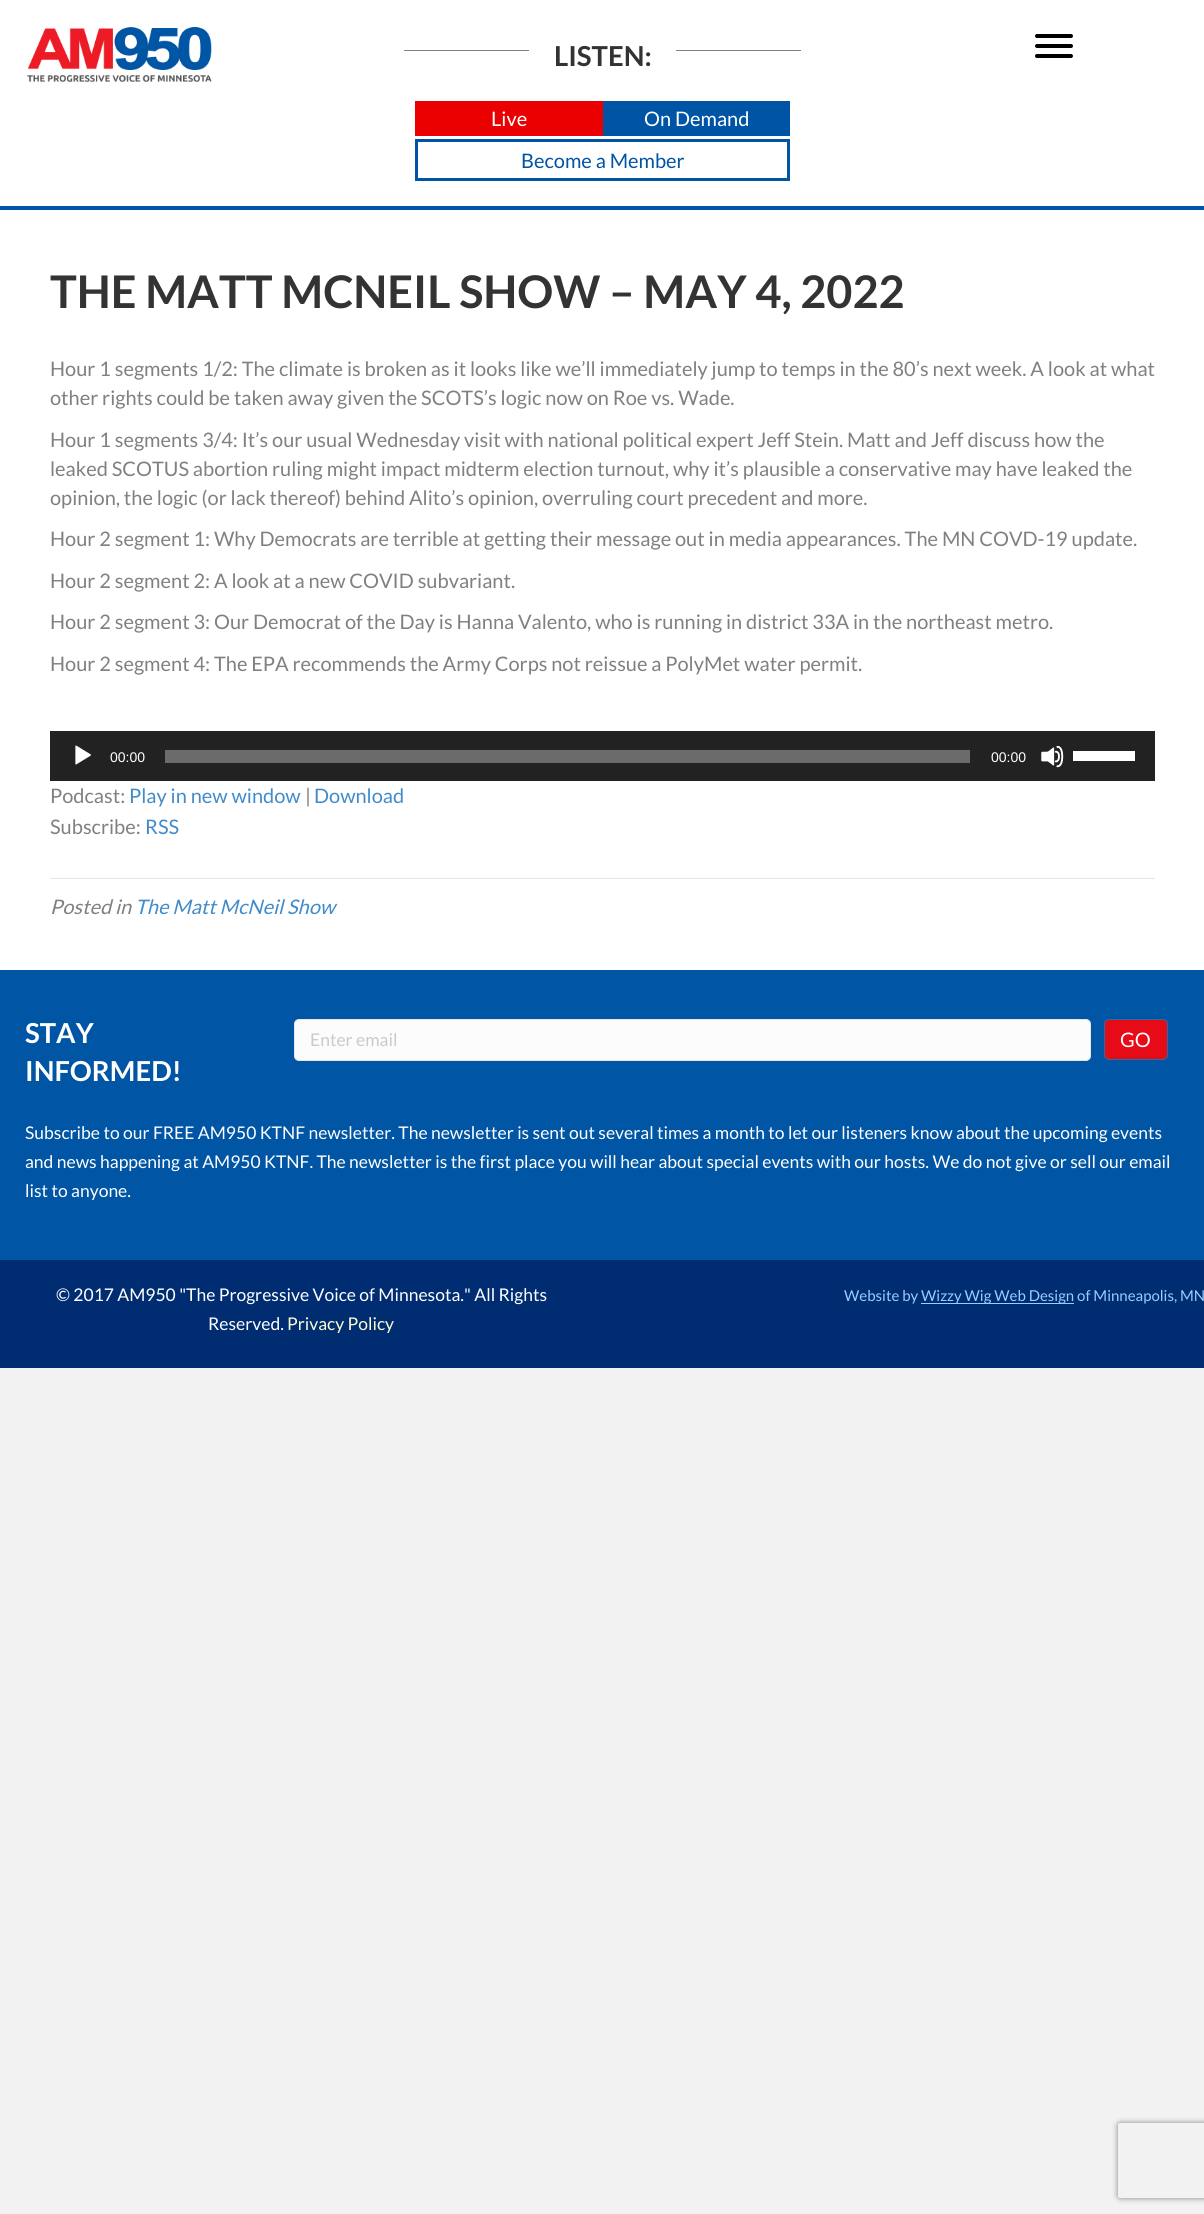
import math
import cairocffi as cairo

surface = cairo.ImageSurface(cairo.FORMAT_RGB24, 1204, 2214)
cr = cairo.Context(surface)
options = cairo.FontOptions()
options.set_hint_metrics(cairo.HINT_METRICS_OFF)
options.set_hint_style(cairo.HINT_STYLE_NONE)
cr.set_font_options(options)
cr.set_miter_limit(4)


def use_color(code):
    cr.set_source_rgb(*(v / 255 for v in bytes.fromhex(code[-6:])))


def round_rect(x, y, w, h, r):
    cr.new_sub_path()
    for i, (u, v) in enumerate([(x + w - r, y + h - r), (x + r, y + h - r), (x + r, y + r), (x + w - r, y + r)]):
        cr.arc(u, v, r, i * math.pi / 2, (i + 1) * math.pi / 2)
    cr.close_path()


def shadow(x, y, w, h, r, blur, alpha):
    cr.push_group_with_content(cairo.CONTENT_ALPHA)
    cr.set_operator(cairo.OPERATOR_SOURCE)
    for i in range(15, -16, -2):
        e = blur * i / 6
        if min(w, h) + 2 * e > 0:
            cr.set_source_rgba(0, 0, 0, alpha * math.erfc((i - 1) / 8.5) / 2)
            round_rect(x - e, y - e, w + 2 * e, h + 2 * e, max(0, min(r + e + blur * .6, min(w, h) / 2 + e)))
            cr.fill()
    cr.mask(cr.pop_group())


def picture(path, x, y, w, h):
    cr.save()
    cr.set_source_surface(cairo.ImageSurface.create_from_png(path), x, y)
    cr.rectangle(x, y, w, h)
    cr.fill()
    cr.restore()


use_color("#f2f2f2")
cr.paint()
use_color("#ffffff")
cr.rectangle(0, 0, 1204, 206)
cr.fill()
use_color("#0054a5")
cr.rectangle(0, 206, 1204, 4)
cr.fill()
picture("img1.png", 27, 27, 185, 55)
use_color("#808080")
cr.rectangle(404, 50, 125, 1)
cr.fill()
cr.select_font_face("Lato", cairo.FONT_SLANT_NORMAL, cairo.FONT_WEIGHT_BOLD)
cr.set_font_size(27.5)
use_color("#333333")
cr.move_to(554, 66)
cr.show_text("LISTEN:")
use_color("#808080")
cr.rectangle(676, 50, 125, 1)
cr.fill()
use_color("#ea0000")
cr.rectangle(415, 101, 188, 35)
cr.fill()
cr.select_font_face("Lato")
cr.set_font_size(20)
use_color("#ffffff")
cr.move_to(491, 126)
cr.show_text("Live")
use_color("#0054a5")
cr.rectangle(603, 101, 187, 35)
cr.fill()
use_color("#ffffff")
cr.move_to(644, 126)
cr.show_text("On Demand")
cr.rectangle(416.5, 140.5, 372, 39)
use_color("#0054a5")
cr.set_line_width(3)
cr.stroke()
cr.move_to(521, 168)
cr.show_text("Become a Member")
use_color("#000000")
round_rect(1035, 44, 38, 4, 2)
cr.fill()
round_rect(1035, 34, 38, 4, 2)
cr.fill()
round_rect(1035, 54, 38, 4, 2)
cr.fill()
use_color("#ffffff")
cr.rectangle(0, 210, 1204, 760)
cr.fill()
cr.select_font_face("Lato", cairo.FONT_SLANT_NORMAL, cairo.FONT_WEIGHT_BOLD)
cr.set_font_size(45)
use_color("#333333")
cr.move_to(50, 308)
cr.show_text("THE MATT MCNEIL SHOW – MAY 4, 2022")
cr.select_font_face("Lato")
cr.set_font_size(20)
use_color("#808080")
cr.move_to(50, 376)
cr.show_text("Hour 1 segments 1/2: The climate is broken as it looks like we’ll immediately jump to temps in the 80’s next week. A look at what")
cr.move_to(50, 405)
cr.show_text("other rights could be taken away given the SCOTS’s logic now on Roe vs. Wade.")
cr.move_to(50, 447)
cr.show_text("Hour 1 segments 3/4: It’s our usual Wednesday visit with national political expert Jeff Stein. Matt and Jeff discuss how the")
cr.move_to(50, 476)
cr.show_text("leaked SCOTUS abortion ruling might impact midterm election turnout, why it’s plausible a conservative may have leaked the")
cr.move_to(50, 505)
cr.show_text("opinion, the logic (or lack thereof) behind Alito’s opinion, overruling court precedent and more.")
cr.move_to(50, 546)
cr.show_text("Hour 2 segment 1: Why Democrats are terrible at getting their message out in media appearances. The MN COVD-19 update.")
cr.move_to(50, 588)
cr.show_text("Hour 2 segment 2: A look at a new COVID subvariant.")
cr.move_to(50, 629)
cr.show_text("Hour 2 segment 3: Our Democrat of the Day is Hanna Valento, who is running in district 33A in the northeast metro.")
cr.move_to(50, 671)
cr.show_text("Hour 2 segment 4: The EPA recommends the Army Corps not reissue a PolyMet water permit.")
use_color("#222222")
cr.rectangle(50, 731, 1105, 50)
cr.fill()
picture("img2.png", 75, 745, 16, 20)
cr.select_font_face("Liberation Sans")
cr.set_font_size(14)
use_color("#ffffff")
cr.move_to(110, 762)
cr.show_text("00:00")
use_color("#6b6b6b")
cr.rectangle(165, 750, 805, 13)
cr.fill()
use_color("#ffffff")
cr.move_to(991, 762)
cr.show_text("00:00")
picture("img3.png", 1041, 745, 23, 23)
cr.rectangle(1073, 751, 62, 10)
cr.fill()
cr.select_font_face("Lato")
cr.set_font_size(20)
use_color("#808080")
cr.move_to(50, 803)
cr.show_text("Podcast:")
use_color("#428bca")
cr.move_to(129, 803)
cr.show_text("Play in new window")
use_color("#808080")
cr.move_to(305, 803)
cr.show_text("|")
use_color("#428bca")
cr.move_to(314, 803)
cr.show_text("Download")
use_color("#808080")
cr.move_to(50, 834)
cr.show_text("Subscribe:")
use_color("#428bca")
cr.move_to(145, 834)
cr.show_text("RSS")
use_color("#e6e6e6")
cr.rectangle(50, 878, 1105, 1)
cr.fill()
cr.select_font_face("Lato", cairo.FONT_SLANT_ITALIC)
use_color("#808080")
cr.move_to(50, 914)
cr.show_text("Posted in")
use_color("#428bca")
cr.move_to(135, 914)
cr.show_text("The Matt McNeil Show")
use_color("#0055a5")
cr.rectangle(0, 970, 1204, 290)
cr.fill()
cr.select_font_face("Lato", cairo.FONT_SLANT_NORMAL, cairo.FONT_WEIGHT_BOLD)
cr.set_font_size(27.5)
use_color("#ffffff")
cr.move_to(25, 1043)
cr.show_text("STAY")
cr.move_to(25, 1081)
cr.show_text("INFORMED!")
use_color("#fcfcfc")
round_rect(294.5, 1019.5, 796, 41, 4.5)
cr.fill_preserve()
use_color("#e6e6e6")
cr.set_line_width(1)
cr.stroke()
cr.select_font_face("Lato")
cr.set_font_size(17.5)
use_color("#cacaca")
cr.move_to(310, 1046)
cr.show_text("Enter email")
use_color("#e70b18")
round_rect(1104.5, 1019.5, 63, 40, 4.5)
cr.fill_preserve()
use_color("#2d6ca2")
cr.stroke()
cr.set_font_size(20)
use_color("#ffffff")
cr.move_to(1120, 1047)
cr.show_text("GO")
cr.save()
cr.set_fill_rule(cairo.FILL_RULE_EVEN_ODD)
cr.new_path()
cr.move_to(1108, 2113)
cr.line_to(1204, 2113)
cr.line_to(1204, 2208)
cr.line_to(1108, 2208)
cr.close_path()
cr.move_to(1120.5, 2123)
cr.line_to(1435.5, 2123)
cr.curve_to(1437, 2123, 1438, 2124, 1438, 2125.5)
cr.line_to(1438, 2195.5)
cr.curve_to(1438, 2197, 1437, 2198, 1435.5, 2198)
cr.line_to(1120.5, 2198)
cr.curve_to(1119, 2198, 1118, 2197, 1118, 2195.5)
cr.line_to(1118, 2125.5)
cr.curve_to(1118, 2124, 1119, 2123, 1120.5, 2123)
cr.close_path()
cr.clip()
use_color("#808080")
shadow(1118, 2123, 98, 75, 2.5, 3, 1)
cr.restore()
cr.set_font_size(17.5)
cr.move_to(25, 1139)
cr.show_text("Subscribe to our FREE AM950 KTNF newsletter. The newsletter is sent out several times a month to let our listeners know about the upcoming events")
cr.move_to(25, 1168)
cr.show_text("and news happening at AM950 KTNF. The newsletter is the first place you will hear about special events with our hosts. We do not give or sell our email")
cr.move_to(25, 1197)
cr.show_text("list to anyone.")
use_color("#002d72")
cr.rectangle(0, 1260, 1204, 108)
cr.fill()
use_color("#ffffff")
cr.move_to(56, 1301)
cr.show_text("© 2017 AM950 \"The Progressive Voice of Minnesota.\" All Rights")
cr.move_to(208, 1330)
cr.show_text("Reserved.")
use_color("#fffcd3")
cr.move_to(287, 1330)
cr.show_text("Privacy Policy")
cr.set_font_size(15)
use_color("#99ccff")
cr.move_to(844, 1301)
cr.show_text("Website by")
cr.rectangle(921, 1303, 153, 1)
cr.fill()
cr.move_to(921, 1301)
cr.show_text("Wizzy Wig Web Design of Minneapolis, MN")
surface.write_to_png("result.png")
